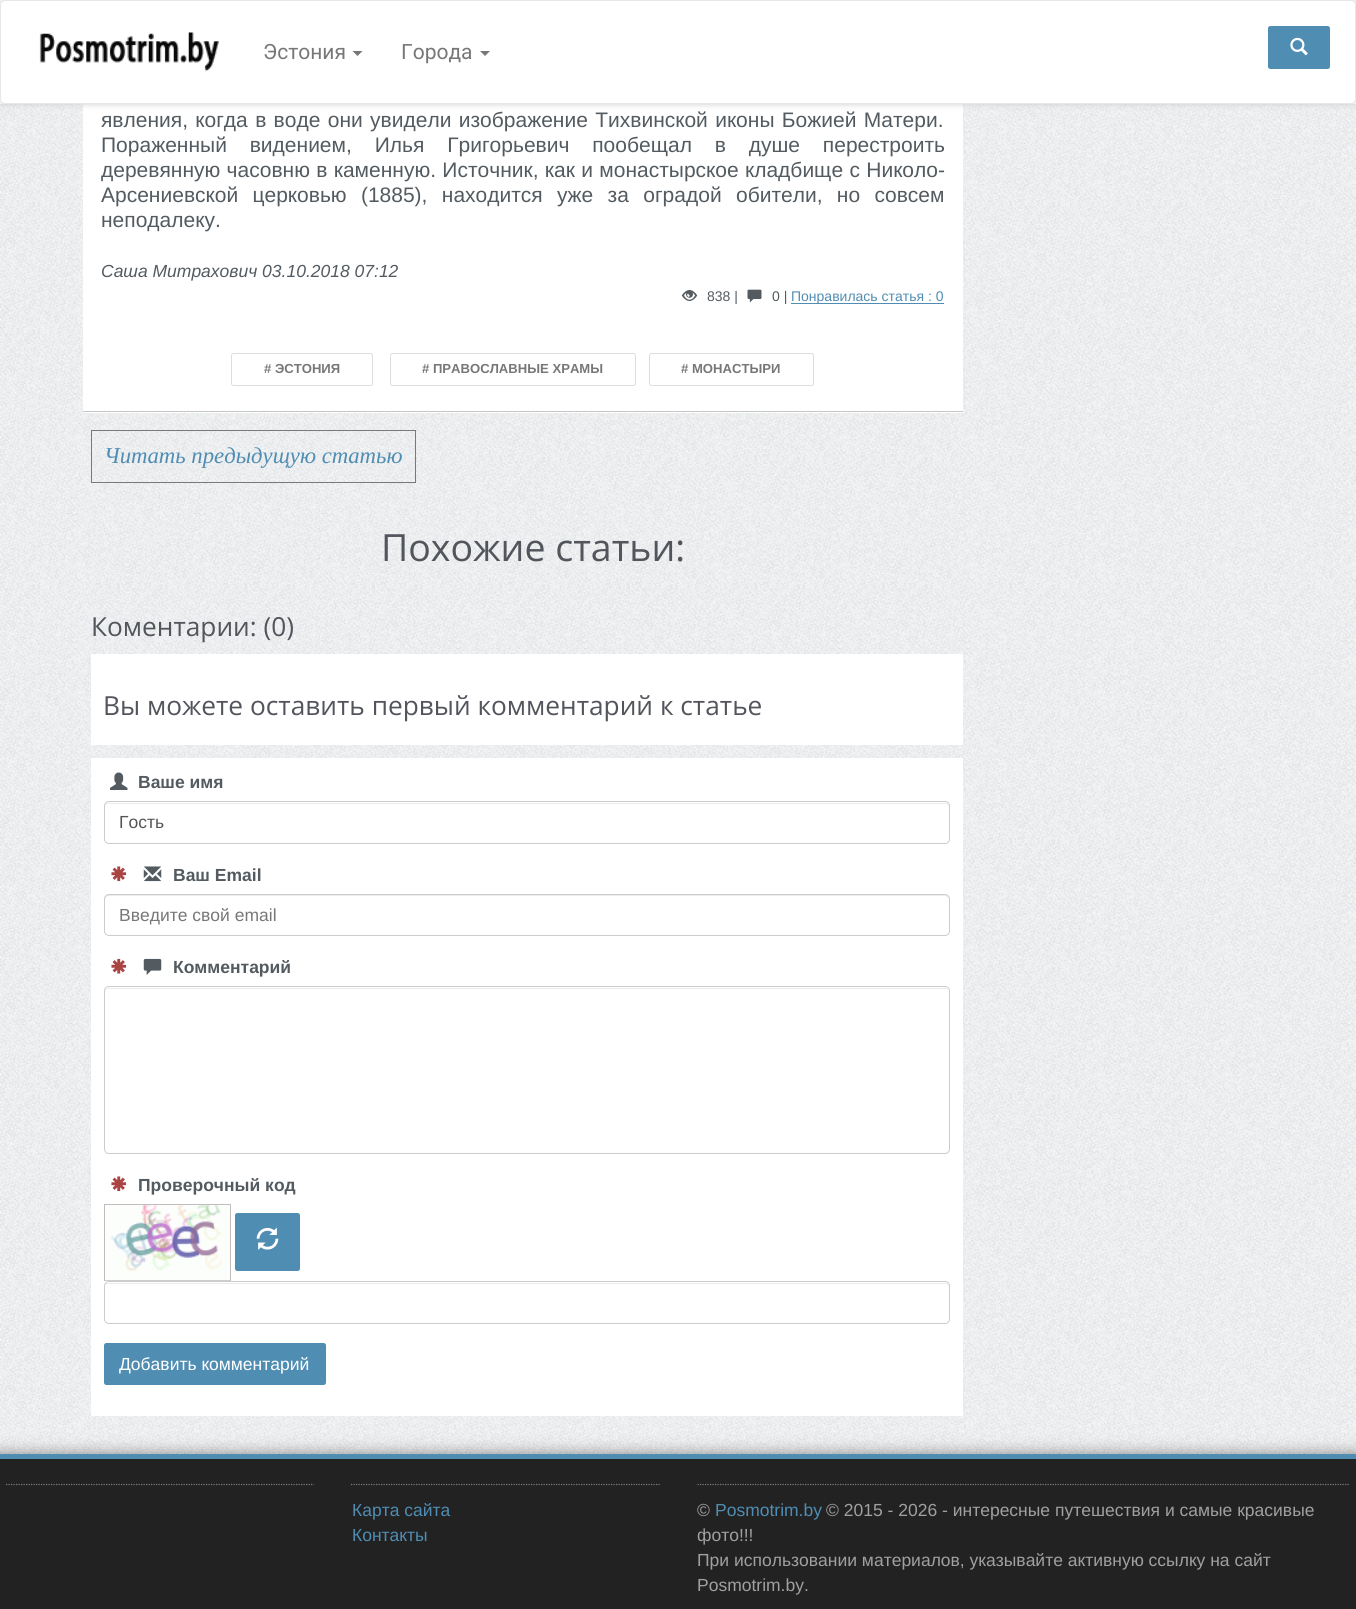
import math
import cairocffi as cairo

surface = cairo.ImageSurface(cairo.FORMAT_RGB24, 1356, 1609)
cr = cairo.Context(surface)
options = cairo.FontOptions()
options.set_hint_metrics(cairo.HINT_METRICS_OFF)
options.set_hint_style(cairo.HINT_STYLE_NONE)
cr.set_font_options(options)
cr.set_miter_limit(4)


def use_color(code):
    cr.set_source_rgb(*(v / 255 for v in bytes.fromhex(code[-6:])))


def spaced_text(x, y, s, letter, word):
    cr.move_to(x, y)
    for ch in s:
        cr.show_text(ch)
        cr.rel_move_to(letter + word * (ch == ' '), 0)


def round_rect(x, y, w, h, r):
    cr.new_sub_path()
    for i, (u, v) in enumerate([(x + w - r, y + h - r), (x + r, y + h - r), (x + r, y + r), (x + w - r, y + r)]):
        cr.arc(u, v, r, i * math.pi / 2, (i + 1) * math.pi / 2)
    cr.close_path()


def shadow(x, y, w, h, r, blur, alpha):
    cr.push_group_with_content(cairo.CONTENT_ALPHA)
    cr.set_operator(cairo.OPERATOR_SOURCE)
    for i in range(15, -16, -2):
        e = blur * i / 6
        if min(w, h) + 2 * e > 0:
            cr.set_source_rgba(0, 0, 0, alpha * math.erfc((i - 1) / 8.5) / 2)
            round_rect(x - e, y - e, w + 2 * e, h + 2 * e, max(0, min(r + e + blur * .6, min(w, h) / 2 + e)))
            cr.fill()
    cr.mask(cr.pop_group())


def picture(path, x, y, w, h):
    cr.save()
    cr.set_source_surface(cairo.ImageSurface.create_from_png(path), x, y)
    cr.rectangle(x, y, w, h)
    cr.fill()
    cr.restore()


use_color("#ffffff")
cr.paint()
picture("img1.png", 0, 0, 1356, 1454)
use_color("#ffffff")
cr.rectangle(83, 104, 880, 309)
cr.fill()
cr.save()
cr.set_fill_rule(cairo.FILL_RULE_EVEN_ODD)
cr.new_path()
cr.move_to(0, 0)
cr.line_to(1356, 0)
cr.line_to(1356, 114)
cr.line_to(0, 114)
cr.close_path()
cr.move_to(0, 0)
cr.line_to(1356, 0)
cr.line_to(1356, 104)
cr.line_to(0, 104)
cr.close_path()
cr.clip()
use_color("#cccccc")
shadow(0, 0, 1356, 104, 0, 3, 1)
cr.restore()
round_rect(0.5, 0.5, 1355, 103, 4.5)
cr.fill_preserve()
use_color("#e7e7e7")
cr.set_line_width(1)
cr.stroke()
picture("img2.png", 39, 32, 180, 40)
cr.select_font_face("Roboto")
cr.set_font_size(21)
use_color("#777777")
cr.move_to(263, 59)
cr.show_text("Эстония")
cr.new_path()
cr.move_to(352.5, 51)
cr.line_to(362.5, 51)
cr.line_to(357.5, 56)
cr.close_path()
cr.fill()
cr.move_to(401, 59)
cr.show_text("Города")
cr.new_path()
cr.move_to(480, 51)
cr.line_to(490, 51)
cr.line_to(485, 56)
cr.close_path()
cr.fill()
use_color("#4f8db3")
round_rect(1268.5, 26.5, 61, 42, 2)
cr.fill_preserve()
cr.stroke()
picture("img3.png", 1290, 37, 18, 19)
use_color("#c5c5c5")
cr.rectangle(83, 411, 880, 1)
cr.fill()
cr.select_font_face("Liberation Sans")
use_color("#535b60")
spaced_text(101, 127, "явления, когда в воде они увидели изображение Тихвинской иконы Божией Матери.", 0, 1.5)
spaced_text(101, 152, "Пораженный видением, Илья Григорьевич пообещал в душе перестроить", 0, 17)
spaced_text(101, 177, "деревянную часовню в каменную. Источник, как и монастырское кладбище с Николо-", 0, 0.5)
spaced_text(101, 202, "Арсениевской церковью (1885), находится уже за оградой обители, но совсем", 0, 8.5)
cr.move_to(101, 227)
cr.show_text("неподалеку.")
cr.select_font_face("Liberation Sans", cairo.FONT_SLANT_ITALIC)
cr.set_font_size(17.5)
cr.move_to(101, 277)
cr.show_text("Саша Митрахович 03.10.2018 07:12")
picture("img4.png", 681, 290, 17, 11)
cr.select_font_face("Liberation Sans")
cr.set_font_size(14)
cr.move_to(707, 301)
cr.show_text("838 |")
picture("img5.png", 747, 289, 15, 14)
cr.move_to(772, 301)
cr.show_text("0 |")
use_color("#4f8db3")
cr.rectangle(791, 303, 153, 1)
cr.fill()
cr.move_to(791, 301)
cr.show_text("Понравилась статья : 0")
round_rect(231.5, 353.5, 141, 32, 2)
use_color("#dddddd")
cr.stroke()
cr.select_font_face("Liberation Sans", cairo.FONT_SLANT_NORMAL, cairo.FONT_WEIGHT_BOLD)
cr.set_font_size(13.1)
use_color("#777777")
cr.move_to(264, 373)
cr.show_text("# ЭСТОНИЯ")
round_rect(390.5, 353.5, 245, 32, 2)
use_color("#dddddd")
cr.stroke()
use_color("#777777")
cr.move_to(422, 373)
cr.show_text("# ПРАВОСЛАВНЫЕ ХРАМЫ")
round_rect(649.5, 353.5, 164, 32, 2)
use_color("#dddddd")
cr.stroke()
use_color("#777777")
cr.move_to(681, 373)
cr.show_text("# МОНАСТЫРИ")
cr.rectangle(91.5, 430.5, 324, 52)
use_color("#797979")
cr.stroke()
cr.select_font_face("Liberation Serif", cairo.FONT_SLANT_ITALIC)
cr.set_font_size(22.75)
use_color("#4f8db3")
cr.move_to(104, 463)
cr.show_text("Читать предыдущую статью")
cr.select_font_face("Open Sans")
cr.set_font_size(37.5)
use_color("#53555c")
cr.move_to(381, 561)
cr.show_text("Похожие статьи:")
cr.set_font_size(26.25)
cr.move_to(91, 636)
cr.show_text("Коментарии: (0)")
use_color("#ffffff")
cr.rectangle(91, 654, 872, 91)
cr.fill()
use_color("#53555c")
cr.move_to(103, 715)
cr.show_text("Вы можете оставить первый комментарий к статье")
use_color("#ffffff")
cr.rectangle(91, 758, 872, 658)
cr.fill()
picture("img6.png", 110, 772, 18, 18)
cr.select_font_face("Liberation Sans", cairo.FONT_SLANT_NORMAL, cairo.FONT_WEIGHT_BOLD)
cr.set_font_size(17.5)
use_color("#535b60")
cr.move_to(138, 788)
cr.show_text("Ваше имя")
use_color("#ececec")
cr.new_path()
cr.move_to(109, 804)
cr.line_to(945, 804)
cr.curve_to(947, 804, 949, 805, 949, 808)
cr.curve_to(949, 805, 948, 803, 945, 803)
cr.line_to(109, 803)
cr.curve_to(106, 803, 105, 805, 105, 808)
cr.curve_to(105, 805, 107, 804, 109, 804)
cr.close_path()
cr.fill()
round_rect(104.5, 801.5, 845, 42, 4.5)
use_color("#cccccc")
cr.stroke()
cr.select_font_face("Liberation Sans")
use_color("#555555")
cr.move_to(119, 828)
cr.show_text("Гость")
picture("img7.png", 111, 866, 16, 16)
picture("img8.png", 143, 866, 19, 16)
cr.select_font_face("Liberation Sans", cairo.FONT_SLANT_NORMAL, cairo.FONT_WEIGHT_BOLD)
use_color("#535b60")
cr.move_to(173, 881)
cr.show_text("Ваш Email")
use_color("#ececec")
cr.new_path()
cr.move_to(109, 896)
cr.line_to(945, 896)
cr.curve_to(947, 896, 949, 898, 949, 900)
cr.curve_to(949, 897, 948, 895, 945, 895)
cr.line_to(109, 895)
cr.curve_to(106, 895, 105, 897, 105, 900)
cr.curve_to(105, 898, 107, 896, 109, 896)
cr.close_path()
cr.fill()
round_rect(104.5, 894.5, 845, 41, 4.5)
use_color("#cccccc")
cr.stroke()
cr.select_font_face("Liberation Sans")
use_color("#777777")
cr.move_to(119, 921)
cr.show_text("Введите свой email")
picture("img9.png", 111, 958, 16, 16)
picture("img10.png", 143, 958, 19, 17)
cr.select_font_face("Liberation Sans", cairo.FONT_SLANT_NORMAL, cairo.FONT_WEIGHT_BOLD)
use_color("#535b60")
cr.move_to(173, 973)
cr.show_text("Комментарий")
use_color("#ececec")
cr.new_path()
cr.move_to(109, 989)
cr.line_to(945, 989)
cr.curve_to(947, 989, 949, 990, 949, 992)
cr.curve_to(949, 990, 947, 988, 945, 988)
cr.line_to(109, 988)
cr.curve_to(107, 988, 105, 990, 105, 992)
cr.curve_to(105, 990, 107, 989, 109, 989)
cr.close_path()
cr.fill()
round_rect(104.5, 986.5, 845, 167, 4.5)
use_color("#cccccc")
cr.stroke()
picture("img7.png", 111, 1176, 16, 16)
use_color("#535b60")
cr.move_to(138, 1191)
cr.show_text("Проверочный код")
cr.rectangle(104.5, 1204.5, 126, 76)
use_color("#c1bdbd")
cr.stroke()
picture("img11.png", 105, 1205, 125, 76)
use_color("#4f8db3")
round_rect(235.5, 1213.5, 64, 57, 2)
cr.fill_preserve()
cr.stroke()
picture("img12.png", 256, 1227, 23, 23)
use_color("#ececec")
cr.new_path()
cr.move_to(109, 1284)
cr.line_to(945, 1284)
cr.curve_to(947, 1284, 949, 1285, 949, 1288)
cr.curve_to(949, 1285, 948, 1283, 945, 1283)
cr.line_to(109, 1283)
cr.curve_to(106, 1283, 105, 1285, 105, 1288)
cr.curve_to(105, 1285, 107, 1284, 109, 1284)
cr.close_path()
cr.fill()
round_rect(104.5, 1281.5, 845, 42, 4.5)
use_color("#cccccc")
cr.stroke()
use_color("#4f8db3")
round_rect(104.5, 1343.5, 221, 41, 2)
cr.fill_preserve()
cr.stroke()
cr.select_font_face("Liberation Sans")
use_color("#ffffff")
cr.move_to(119, 1370)
cr.show_text("Добавить комментарий")
use_color("#000000")
shadow(-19, 1453, 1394, 156, 0, 7.5, 0.4)
use_color("#222222")
cr.rectangle(0, 1459, 1356, 150)
cr.fill()
use_color("#4f8db3")
cr.rectangle(0, 1454, 1356, 5)
cr.fill()
cr.new_path()
cr.move_to(6, 1484.5)
cr.line_to(314, 1484.5)
use_color("#7c7c7c")
cr.set_line_width(1.2)
cr.set_dash([1.25, 1.25])
cr.stroke()
cr.new_path()
cr.move_to(351, 1484.5)
cr.line_to(660, 1484.5)
cr.stroke()
use_color("#4f8db3")
cr.move_to(352, 1516)
cr.show_text("Карта сайта")
cr.move_to(352, 1541)
cr.show_text("Контакты")
cr.new_path()
cr.move_to(697.5, 1484.5)
cr.line_to(1350, 1484.5)
use_color("#7c7c7c")
cr.stroke()
use_color("#a0a0a0")
cr.move_to(697, 1516)
cr.show_text("©")
use_color("#4f8db3")
cr.move_to(715, 1516)
cr.show_text("Posmotrim.by")
use_color("#a0a0a0")
cr.move_to(826, 1516)
cr.show_text("© 2015 - 2026 - интересные путешествия и самые красивые")
cr.move_to(697, 1541)
cr.show_text("фото!!!")
cr.move_to(697, 1566)
cr.show_text("При использовании материалов, указывайте активную ссылку на сайт")
cr.move_to(697, 1591)
cr.show_text("Posmotrim.by.")
surface.write_to_png("result.png")
